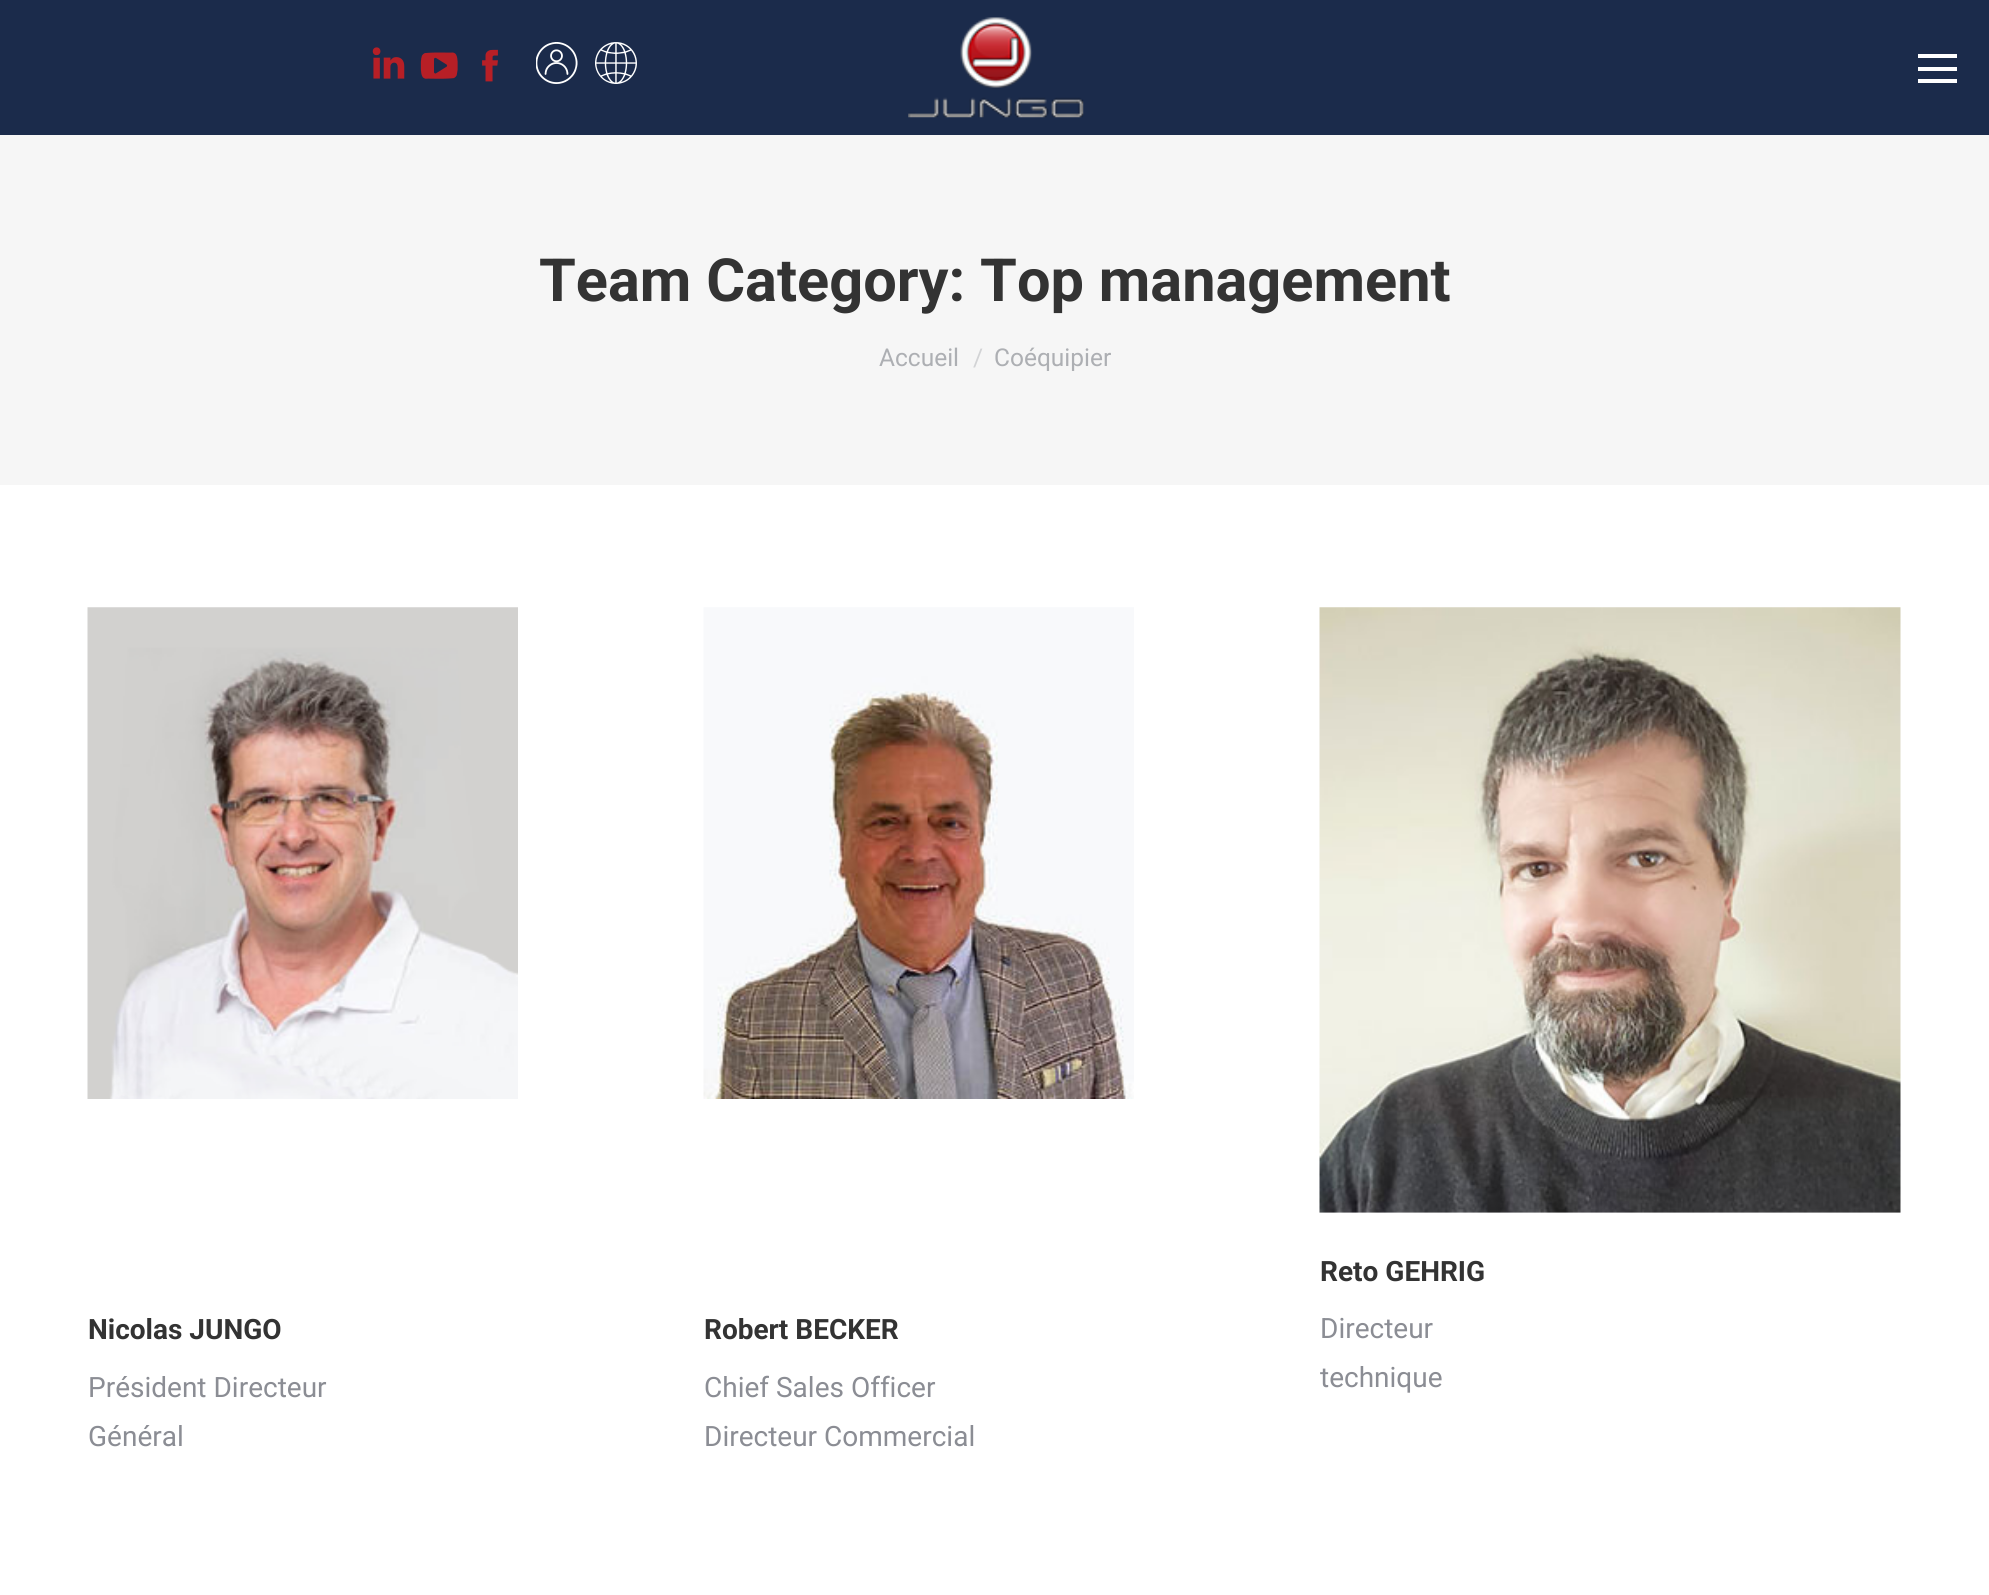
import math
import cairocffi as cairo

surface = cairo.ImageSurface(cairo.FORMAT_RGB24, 1989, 1595)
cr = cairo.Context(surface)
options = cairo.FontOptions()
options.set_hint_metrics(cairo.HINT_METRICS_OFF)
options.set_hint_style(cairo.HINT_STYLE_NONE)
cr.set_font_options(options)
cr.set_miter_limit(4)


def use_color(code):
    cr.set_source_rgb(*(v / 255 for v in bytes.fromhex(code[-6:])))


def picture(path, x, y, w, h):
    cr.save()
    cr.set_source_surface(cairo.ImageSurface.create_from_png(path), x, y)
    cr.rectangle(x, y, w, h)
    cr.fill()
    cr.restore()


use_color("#ffffff")
cr.paint()
use_color("#1b2b4b")
cr.rectangle(0, 0, 1989, 135)
cr.fill()
picture("img1.png", 372, 47, 33, 32)
picture("img2.png", 420, 52, 38, 27)
picture("img3.png", 482, 49, 16, 33)
picture("img4.png", 536, 42, 42, 42)
picture("img5.png", 595, 42, 42, 42)
picture("img6.png", 908, 17, 176, 101)
use_color("#ffffff")
cr.rectangle(1918, 54, 39, 4)
cr.fill()
cr.rectangle(1918, 67, 39, 4)
cr.fill()
cr.rectangle(1918, 79, 39, 4)
cr.fill()
use_color("#f6f6f6")
cr.rectangle(0, 135, 1989, 350)
cr.fill()
cr.select_font_face("Roboto", cairo.FONT_SLANT_NORMAL, cairo.FONT_WEIGHT_BOLD)
cr.set_font_size(59.5)
use_color("#333333")
cr.move_to(539, 301)
cr.show_text("Team Category: Top management")
cr.select_font_face("Roboto")
cr.set_font_size(24.5)
use_color("#adafb3")
cr.move_to(879, 366)
cr.show_text("Accueil")
use_color("#d2d3d5")
cr.move_to(973, 366)
cr.show_text("/")
use_color("#adafb3")
cr.move_to(994, 366)
cr.show_text("Coéquipier")
picture("img7.png", 87, 607, 431, 492)
cr.select_font_face("Roboto", cairo.FONT_SLANT_NORMAL, cairo.FONT_WEIGHT_BOLD)
cr.set_font_size(28)
use_color("#333333")
cr.move_to(88, 1339)
cr.show_text("Nicolas JUNGO")
cr.select_font_face("Roboto")
use_color("#8b8d94")
cr.move_to(88, 1397)
cr.show_text("Président Directeur")
cr.move_to(88, 1446)
cr.show_text("Général")
picture("img8.png", 703, 607, 431, 492)
cr.select_font_face("Roboto", cairo.FONT_SLANT_NORMAL, cairo.FONT_WEIGHT_BOLD)
use_color("#333333")
cr.move_to(704, 1339)
cr.show_text("Robert BECKER")
cr.select_font_face("Roboto")
use_color("#8b8d94")
cr.move_to(704, 1397)
cr.show_text("Chief Sales Officer")
cr.move_to(704, 1446)
cr.show_text("Directeur Commercial")
picture("img9.png", 1319, 607, 582, 606)
cr.select_font_face("Roboto", cairo.FONT_SLANT_NORMAL, cairo.FONT_WEIGHT_BOLD)
use_color("#333333")
cr.move_to(1320, 1281)
cr.show_text("Reto GEHRIG")
cr.select_font_face("Roboto")
use_color("#8b8d94")
cr.move_to(1320, 1338)
cr.show_text("Directeur")
cr.move_to(1320, 1387)
cr.show_text("technique")
surface.write_to_png("result.png")
